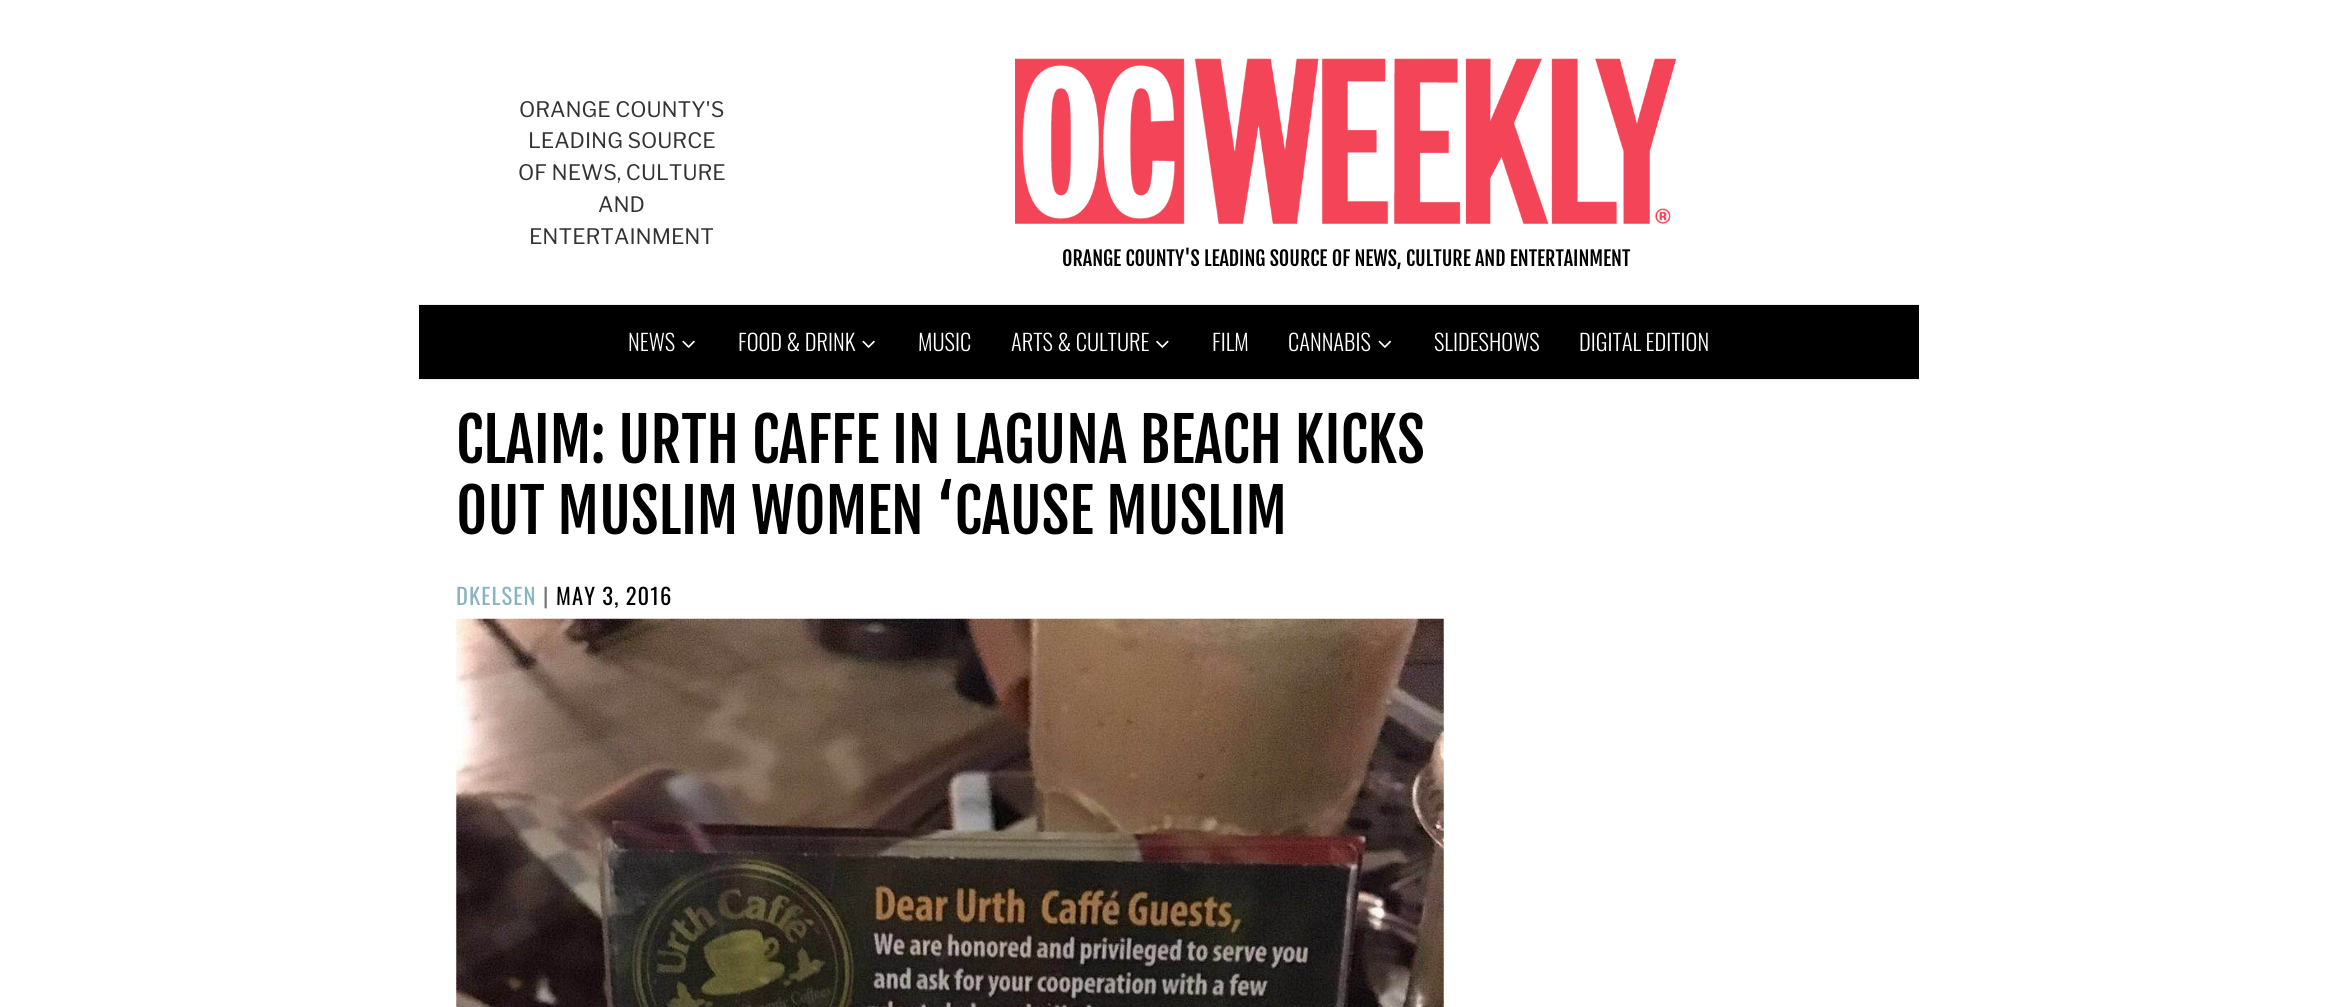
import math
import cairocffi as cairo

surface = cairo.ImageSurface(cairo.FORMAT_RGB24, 2337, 1007)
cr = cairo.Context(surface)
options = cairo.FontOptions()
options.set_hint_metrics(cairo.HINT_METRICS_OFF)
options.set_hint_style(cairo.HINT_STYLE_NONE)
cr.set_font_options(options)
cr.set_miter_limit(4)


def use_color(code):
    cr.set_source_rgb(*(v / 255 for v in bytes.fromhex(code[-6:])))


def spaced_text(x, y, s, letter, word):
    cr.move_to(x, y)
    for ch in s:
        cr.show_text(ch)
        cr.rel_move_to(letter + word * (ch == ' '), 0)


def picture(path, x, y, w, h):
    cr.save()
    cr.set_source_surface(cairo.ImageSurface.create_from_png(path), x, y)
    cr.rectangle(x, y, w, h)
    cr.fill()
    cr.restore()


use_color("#ffffff")
cr.paint()
cr.select_font_face("Libre Franklin Thin")
cr.set_font_size(21.25)
use_color("#333333")
cr.move_to(519, 117)
cr.show_text("ORANGE COUNTY'S")
cr.move_to(528, 148)
cr.show_text("LEADING SOURCE")
cr.move_to(518, 180)
cr.show_text("OF NEWS, CULTURE")
cr.move_to(598, 212)
cr.show_text("AND")
cr.move_to(529, 244)
cr.show_text("ENTERTAINMENT")
picture("img1.png", 1015, 58, 661, 166)
cr.select_font_face("Fjalla One")
cr.set_font_size(20)
use_color("#000000")
cr.move_to(1062, 266)
cr.show_text("ORANGE COUNTY'S LEADING SOURCE OF NEWS, CULTURE AND ENTERTAINMENT")
cr.rectangle(419, 305, 1500, 74)
cr.fill()
use_color("#eeeeee")
cr.rectangle(419, 304, 1500, 1)
cr.fill()
cr.rectangle(419, 379, 1500, 1)
cr.fill()
cr.select_font_face("Oswald Light")
cr.set_font_size(22.5)
use_color("#ffffff")
cr.move_to(628, 351)
cr.show_text("NEWS")
picture("img2.png", 682, 340, 13, 8)
cr.move_to(738, 351)
cr.show_text("FOOD & DRINK")
picture("img2.png", 862, 340, 13, 8)
cr.move_to(918, 351)
cr.show_text("MUSIC")
cr.move_to(1011, 351)
cr.show_text("ARTS & CULTURE")
picture("img3.png", 1156, 340, 13, 8)
cr.move_to(1212, 351)
cr.show_text("FILM")
cr.move_to(1288, 351)
cr.show_text("CANNABIS")
picture("img4.png", 1378, 340, 14, 8)
cr.move_to(1434, 351)
cr.show_text("SLIDESHOWS")
cr.move_to(1579, 351)
cr.show_text("DIGITAL EDITION")
cr.select_font_face("Fjalla One")
cr.set_font_size(60)
use_color("#000000")
cr.move_to(456, 463)
cr.show_text("CLAIM: URTH CAFFE IN LAGUNA BEACH KICKS")
cr.move_to(456, 534)
cr.show_text("OUT MUSLIM WOMEN ‘CAUSE MUSLIM")
cr.select_font_face("Oswald")
cr.set_font_size(22.5)
use_color("#89b3c0")
spaced_text(456, 605, "DKELSEN", 1.1, 0)
use_color("#767676")
spaced_text(543, 605, "|", 1.1, 0)
use_color("#000000")
spaced_text(556, 605, "MAY 3, 2016", 1.1, 0)
picture("img5.png", 456, 618, 988, 389)
surface.write_to_png("result.png")
